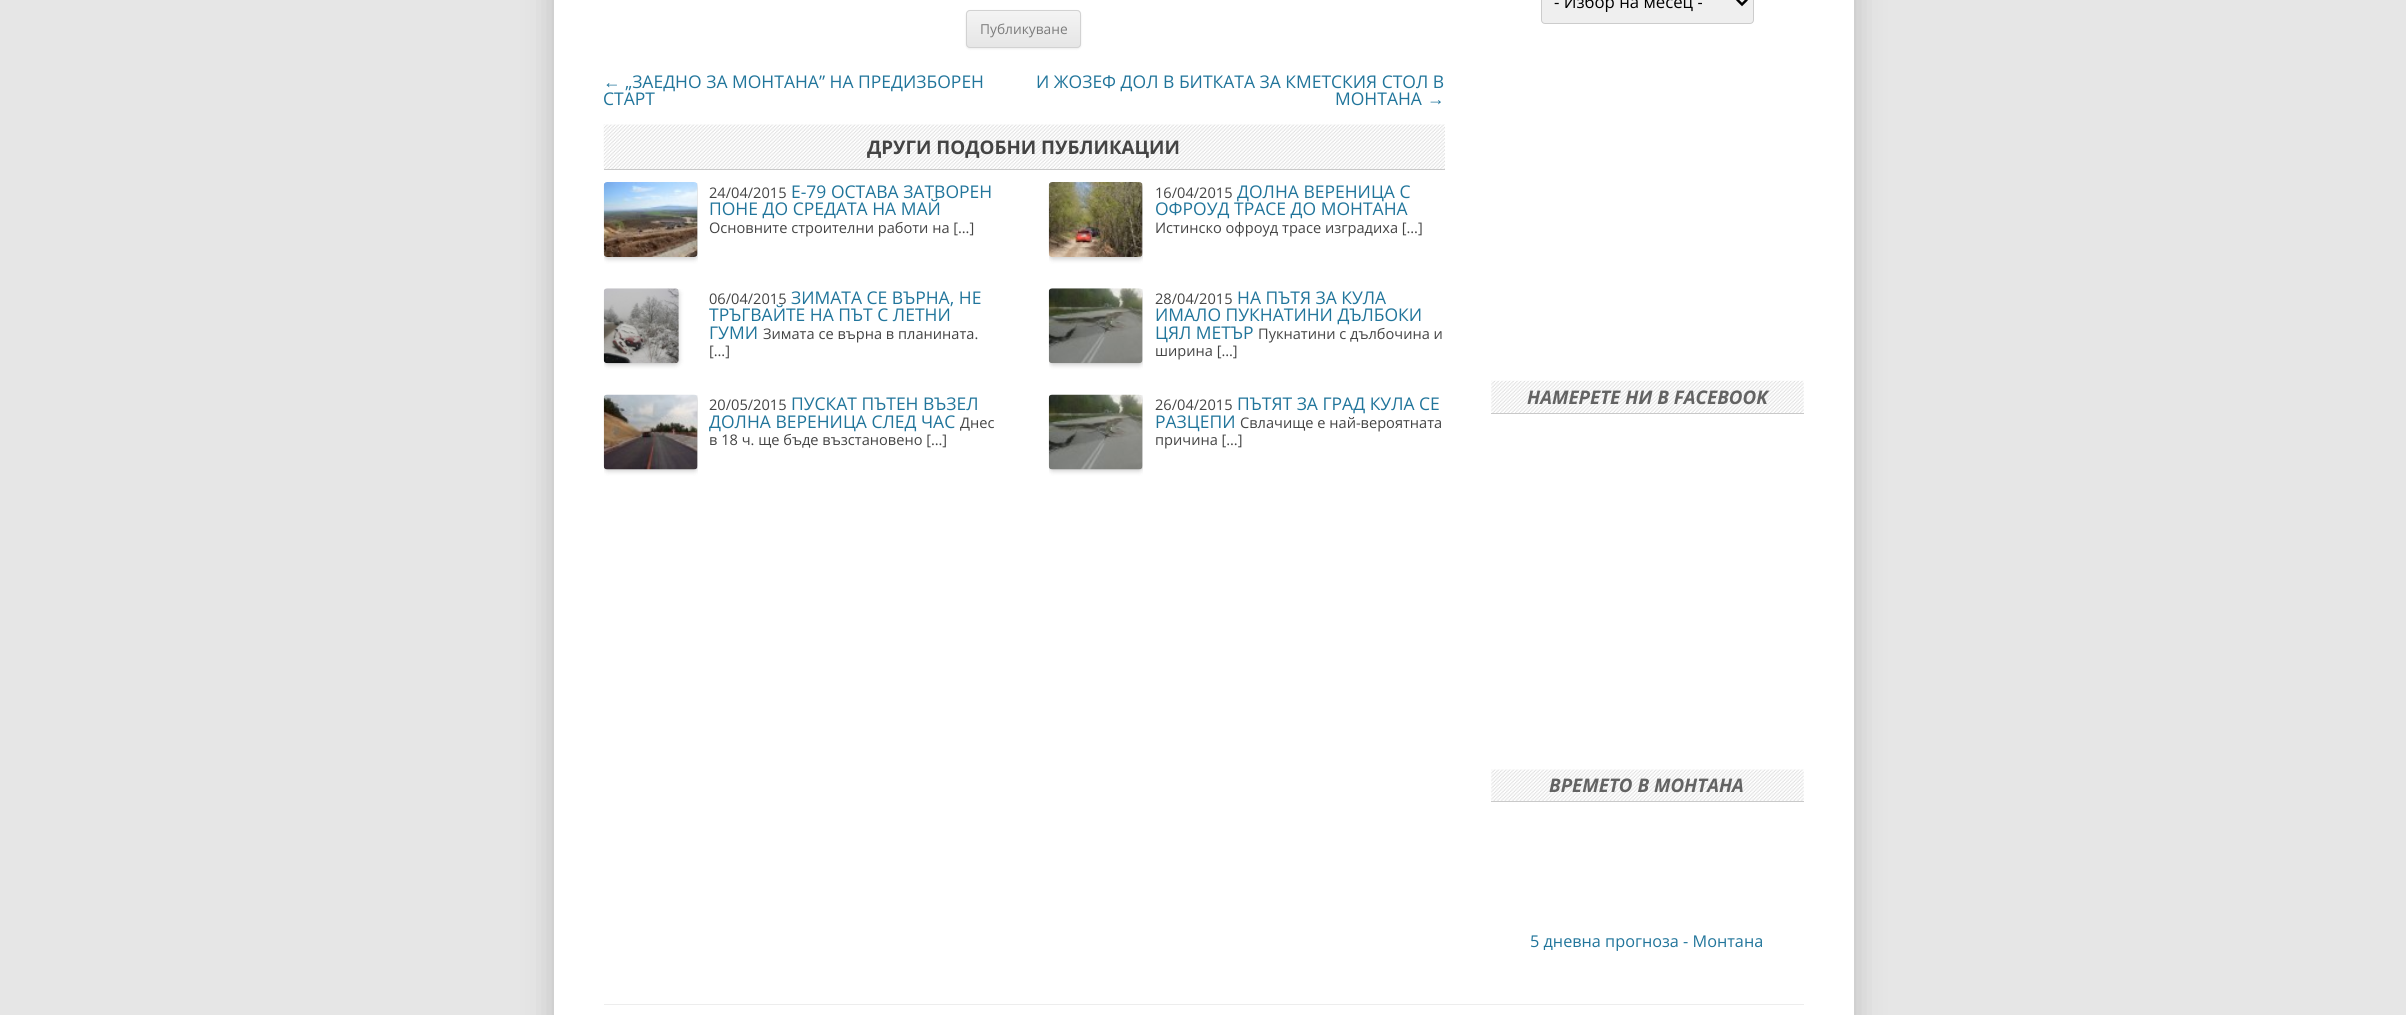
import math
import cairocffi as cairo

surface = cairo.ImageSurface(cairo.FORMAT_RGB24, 2406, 1015)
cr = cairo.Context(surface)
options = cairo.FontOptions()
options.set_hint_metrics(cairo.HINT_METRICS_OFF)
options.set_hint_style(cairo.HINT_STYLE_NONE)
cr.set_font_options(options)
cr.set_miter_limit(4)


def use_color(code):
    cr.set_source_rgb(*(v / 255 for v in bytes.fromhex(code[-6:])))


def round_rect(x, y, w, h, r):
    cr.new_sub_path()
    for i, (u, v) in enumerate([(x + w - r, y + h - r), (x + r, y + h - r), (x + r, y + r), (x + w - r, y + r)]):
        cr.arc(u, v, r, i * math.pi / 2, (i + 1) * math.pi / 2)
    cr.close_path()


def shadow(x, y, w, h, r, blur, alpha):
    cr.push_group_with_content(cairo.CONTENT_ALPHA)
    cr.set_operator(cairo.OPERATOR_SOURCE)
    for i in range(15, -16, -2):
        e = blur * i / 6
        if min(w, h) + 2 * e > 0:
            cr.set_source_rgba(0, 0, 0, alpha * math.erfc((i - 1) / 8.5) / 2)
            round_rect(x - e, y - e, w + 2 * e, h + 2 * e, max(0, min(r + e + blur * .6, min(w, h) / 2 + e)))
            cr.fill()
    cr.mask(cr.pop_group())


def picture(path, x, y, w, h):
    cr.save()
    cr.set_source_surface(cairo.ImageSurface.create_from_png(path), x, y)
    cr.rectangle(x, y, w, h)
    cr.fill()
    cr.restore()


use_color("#e6e6e6")
cr.paint()
use_color("#646464")
shadow(554, -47, 1300, 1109, 0, 15.5, 0.33)
use_color("#ffffff")
cr.rectangle(554, 0, 1300, 1015)
cr.fill()
use_color("#404040")
shadow(966, 11, 115, 38, 4, 1, 0.1)
use_color("#e6e6e6")
round_rect(966, 10, 115, 38, 4)
cr.fill()
cr.save()
round_rect(966, 10, 115, 38, 4)
cr.clip()
gradient = cairo.LinearGradient(1024, 11, 1024, 46)
gradient.add_color_stop_rgba(0, 0.957, 0.957, 0.957, 1)
gradient.add_color_stop_rgba(1, 0.902, 0.902, 0.902, 1)
cr.set_source(gradient)
cr.rectangle(966, 11, 115, 35)
cr.fill()
cr.restore()
round_rect(966.5, 10.5, 114, 37, 3.5)
use_color("#d2d2d2")
cr.set_line_width(1)
cr.stroke()
cr.select_font_face("Open Sans")
cr.set_font_size(13.75)
use_color("#7c7c7c")
cr.move_to(980, 34)
cr.show_text("Публикуване")
cr.select_font_face("Liberation Sans")
cr.set_font_size(17.5)
use_color("#21759b")
cr.move_to(603, 88)
cr.show_text("←")
cr.select_font_face("Open Sans")
cr.move_to(625, 88)
cr.show_text("„ЗАЕДНО ЗА МОНТАНА” НА ПРЕДИЗБОРЕН")
cr.move_to(603, 105)
cr.show_text("СТАРТ")
cr.move_to(1036, 88)
cr.show_text("И ЖОЗЕФ ДОЛ В БИТКАТА ЗА КМЕТСКИЯ СТОЛ В")
cr.move_to(1335, 105)
cr.show_text("МОНТАНА")
cr.select_font_face("Liberation Sans")
cr.move_to(1427, 105)
cr.show_text("→")
picture("img1.png", 603, 124, 842, 45)
use_color("#c9c9c9")
cr.rectangle(604, 169, 841, 1)
cr.fill()
cr.select_font_face("Open Sans", cairo.FONT_SLANT_NORMAL, cairo.FONT_WEIGHT_BOLD)
cr.set_font_size(18.75)
use_color("#444444")
cr.move_to(867, 154)
cr.show_text("ДРУГИ ПОДОБНИ ПУБЛИКАЦИИ")
cr.save()
cr.rectangle(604, 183, 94, 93)
cr.clip()
use_color("#000000")
shadow(604, 184, 94, 75, 4, 2.5, 0.2)
cr.restore()
picture("img2.png", 603, 182, 95, 75)
cr.select_font_face("Open Sans")
cr.set_font_size(14.6)
cr.move_to(709, 198)
cr.show_text("24/04/2015")
cr.set_font_size(17.5)
use_color("#21759b")
cr.move_to(791, 198)
cr.show_text("Е-79 ОСТАВА ЗАТВОРЕН")
cr.move_to(709, 215)
cr.show_text("ПОНЕ ДО СРЕДАТА НА МАЙ")
cr.set_font_size(14.6)
use_color("#444444")
cr.move_to(709, 233)
cr.show_text("Основните строителни работи на […]")
cr.save()
cr.rectangle(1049, 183, 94, 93)
cr.clip()
use_color("#000000")
shadow(1049, 184, 94, 75, 4, 2.5, 0.2)
cr.restore()
picture("img3.png", 1048, 182, 95, 75)
cr.move_to(1155, 198)
cr.show_text("16/04/2015")
cr.set_font_size(17.5)
use_color("#21759b")
cr.move_to(1237, 198)
cr.show_text("ДОЛНА ВЕРЕНИЦА С")
cr.move_to(1155, 215)
cr.show_text("ОФРОУД ТРАСЕ ДО МОНТАНА")
cr.set_font_size(14.6)
use_color("#444444")
cr.move_to(1155, 233)
cr.show_text("Истинско офроуд трасе изградиха […]")
cr.save()
cr.rectangle(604, 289, 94, 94)
cr.clip()
use_color("#000000")
shadow(604, 290, 75, 75, 4, 2.5, 0.2)
cr.restore()
picture("img4.png", 603, 288, 76, 76)
cr.move_to(709, 304)
cr.show_text("06/04/2015")
cr.set_font_size(17.5)
use_color("#21759b")
cr.move_to(791, 304)
cr.show_text("ЗИМАТА СЕ ВЪРНА, НЕ")
cr.move_to(709, 321)
cr.show_text("ТРЪГВАЙТЕ НА ПЪТ С ЛЕТНИ")
cr.move_to(709, 339)
cr.show_text("ГУМИ")
cr.set_font_size(14.6)
use_color("#444444")
cr.move_to(763, 339)
cr.show_text("Зимата се върна в планината.")
cr.move_to(709, 356)
cr.show_text("[…]")
cr.save()
cr.rectangle(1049, 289, 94, 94)
cr.clip()
use_color("#000000")
shadow(1049, 290, 94, 75, 4, 2.5, 0.2)
cr.restore()
picture("img5.png", 1048, 288, 95, 76)
cr.move_to(1155, 304)
cr.show_text("28/04/2015")
cr.set_font_size(17.5)
use_color("#21759b")
cr.move_to(1237, 304)
cr.show_text("НА ПЪТЯ ЗА КУЛА")
cr.move_to(1155, 321)
cr.show_text("ИМАЛО ПУКНАТИНИ ДЪЛБОКИ")
cr.move_to(1155, 339)
cr.show_text("ЦЯЛ МЕТЪР")
cr.set_font_size(14.6)
use_color("#444444")
cr.move_to(1258, 339)
cr.show_text("Пукнатини с дълбочина и")
cr.move_to(1155, 356)
cr.show_text("ширина […]")
cr.save()
cr.rectangle(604, 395, 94, 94)
cr.clip()
use_color("#000000")
shadow(604, 396, 94, 75, 4, 2.5, 0.2)
cr.restore()
picture("img6.png", 603, 394, 95, 76)
cr.move_to(709, 410)
cr.show_text("20/05/2015")
cr.set_font_size(17.5)
use_color("#21759b")
cr.move_to(791, 410)
cr.show_text("ПУСКАТ ПЪТЕН ВЪЗЕЛ")
cr.move_to(709, 428)
cr.show_text("ДОЛНА ВЕРЕНИЦА СЛЕД ЧАС")
cr.set_font_size(14.6)
use_color("#444444")
cr.move_to(960, 428)
cr.show_text("Днес")
cr.move_to(709, 445)
cr.show_text("в 18 ч. ще бъде възстановено […]")
cr.save()
cr.rectangle(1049, 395, 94, 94)
cr.clip()
use_color("#000000")
shadow(1049, 396, 94, 75, 4, 2.5, 0.2)
cr.restore()
picture("img7.png", 1048, 394, 95, 76)
cr.move_to(1155, 410)
cr.show_text("26/04/2015")
cr.set_font_size(17.5)
use_color("#21759b")
cr.move_to(1237, 410)
cr.show_text("ПЪТЯТ ЗА ГРАД КУЛА СЕ")
cr.move_to(1155, 428)
cr.show_text("РАЗЦЕПИ")
cr.set_font_size(14.6)
use_color("#444444")
cr.move_to(1240, 428)
cr.show_text("Свлачище е най-вероятната")
cr.move_to(1155, 445)
cr.show_text("причина […]")
use_color("#efefef")
round_rect(1541.5, -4.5, 212, 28, 3.5)
cr.fill_preserve()
use_color("#cccccc")
cr.stroke()
cr.new_path()
cr.move_to(1737, -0.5)
cr.line_to(1742, 4.5)
cr.line_to(1747, -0.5)
use_color("#000000")
cr.set_line_width(2.5)
cr.stroke()
cr.set_font_size(16.75)
cr.move_to(1554, 8)
cr.show_text("- Избор на месец -")
picture("img8.png", 1491, 380, 313, 33)
use_color("#c9c9c9")
cr.rectangle(1491, 413, 313, 1)
cr.fill()
cr.select_font_face("Open Sans", cairo.FONT_SLANT_ITALIC, cairo.FONT_WEIGHT_BOLD)
cr.set_font_size(18.75)
use_color("#636363")
cr.move_to(1527, 404)
cr.show_text("НАМЕРЕТЕ НИ В FACEBOOK")
picture("img9.png", 1491, 769, 313, 32)
use_color("#c9c9c9")
cr.rectangle(1491, 801, 313, 1)
cr.fill()
use_color("#636363")
cr.move_to(1549, 792)
cr.show_text("ВРЕМЕТО В МОНТАНА")
cr.select_font_face("Open Sans")
cr.set_font_size(16.25)
use_color("#21759b")
cr.move_to(1530, 947)
cr.show_text("5 дневна прогноза - Монтана")
use_color("#ededed")
cr.rectangle(604, 1004, 1200, 1)
cr.fill()
surface.write_to_png("result.png")
